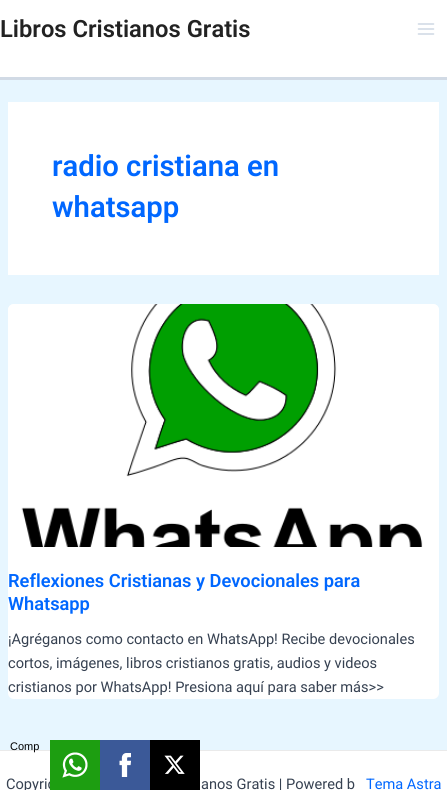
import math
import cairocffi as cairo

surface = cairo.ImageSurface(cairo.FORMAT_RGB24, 447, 790)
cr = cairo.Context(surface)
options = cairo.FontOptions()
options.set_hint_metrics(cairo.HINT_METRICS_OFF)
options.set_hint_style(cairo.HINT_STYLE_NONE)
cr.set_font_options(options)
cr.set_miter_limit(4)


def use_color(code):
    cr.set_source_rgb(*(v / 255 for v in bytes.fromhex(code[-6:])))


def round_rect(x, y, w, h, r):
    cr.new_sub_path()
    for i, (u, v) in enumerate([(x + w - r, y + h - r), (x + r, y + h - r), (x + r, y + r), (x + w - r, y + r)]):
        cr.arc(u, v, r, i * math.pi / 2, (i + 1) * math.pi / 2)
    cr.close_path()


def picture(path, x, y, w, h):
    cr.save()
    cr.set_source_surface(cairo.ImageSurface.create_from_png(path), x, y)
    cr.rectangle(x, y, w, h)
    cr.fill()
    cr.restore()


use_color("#e7f6ff")
cr.paint()
use_color("#ffffff")
cr.rectangle(0, 0, 447, 77)
cr.fill()
use_color("#d1dae5")
cr.rectangle(0, 77, 447, 3)
cr.fill()
cr.select_font_face("Roboto SemiBold")
cr.set_font_size(23.75)
use_color("#222222")
cr.move_to(0, 37)
cr.show_text("Libros Cristianos Gratis")
picture("img1.png", 417, 23, 18, 12)
use_color("#ffffff")
cr.rectangle(8, 102, 431, 173)
cr.fill()
cr.set_font_size(29.25)
use_color("#0067ff")
cr.move_to(52, 176)
cr.show_text("radio cristiana en")
cr.move_to(52, 217)
cr.show_text("whatsapp")
use_color("#ffffff")
round_rect(8, 304, 431, 395, 6)
cr.fill()
picture("img2.png", 8, 304, 431, 243)
cr.set_font_size(18.25)
use_color("#0067ff")
cr.move_to(8, 587)
cr.show_text("Reflexiones Cristianas y Devocionales para")
cr.move_to(8, 610)
cr.show_text("Whatsapp")
cr.select_font_face("Roboto")
cr.set_font_size(14.6)
use_color("#364151")
cr.move_to(8, 644)
cr.show_text("¡Agréganos como contacto en WhatsApp! Recibe devocionales")
cr.move_to(8, 668)
cr.show_text("cortos, imágenes, libros cristianos gratis, audios y videos")
cr.move_to(8, 692)
cr.show_text("cristianos por WhatsApp! Presiona aquí para saber más>>")
use_color("#ffffff")
cr.rectangle(0, 751, 447, 39)
cr.fill()
use_color("#eaeaea")
cr.rectangle(0, 750, 447, 1)
cr.fill()
use_color("#364151")
cr.move_to(6, 789)
cr.show_text("Copyrig")
cr.move_to(201, 789)
cr.show_text("anos Gratis | Powered b")
use_color("#0067ff")
cr.move_to(366, 789)
cr.show_text("Tema Astra")
cr.select_font_face("Liberation Sans")
cr.set_font_size(11)
use_color("#000000")
cr.move_to(10, 750)
cr.show_text("Comp")
use_color("#1d9e11")
cr.rectangle(50, 740, 50, 50)
cr.fill()
picture("img3.png", 62, 752, 26, 26)
use_color("#3b5998")
cr.rectangle(100, 740, 50, 50)
cr.fill()
picture("img4.png", 119, 753, 12, 24)
use_color("#000000")
cr.rectangle(150, 740, 50, 50)
cr.fill()
picture("img5.png", 164, 755, 21, 19)
surface.write_to_png("result.png")
